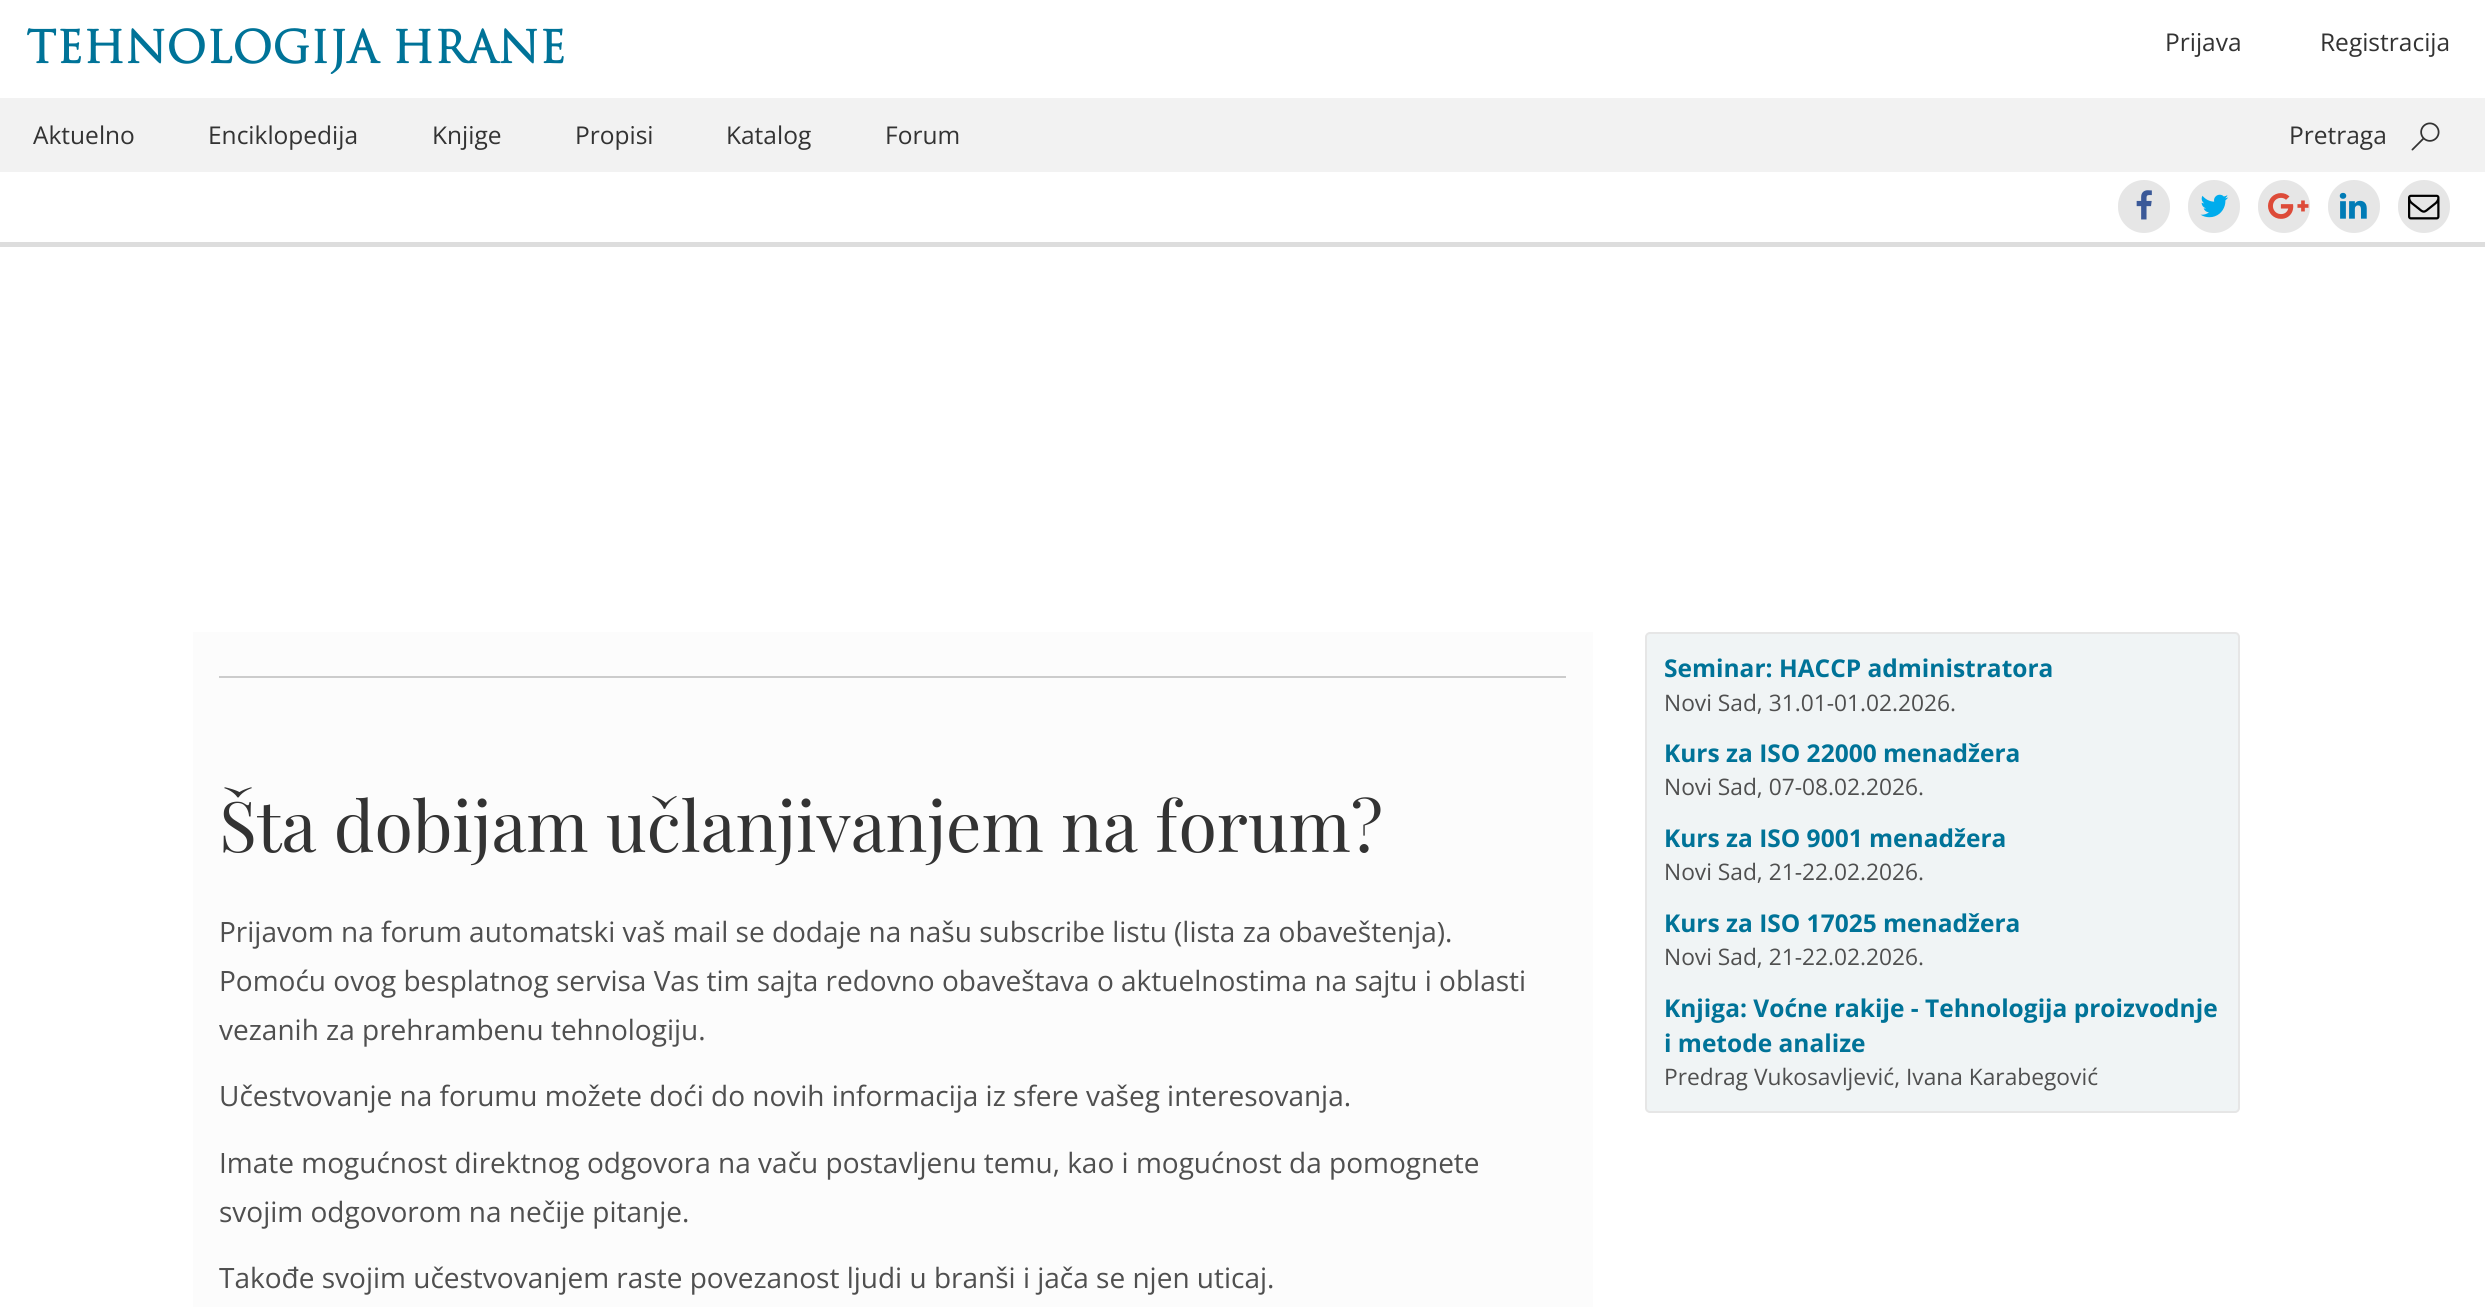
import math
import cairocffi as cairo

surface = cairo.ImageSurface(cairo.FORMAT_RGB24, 2485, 1307)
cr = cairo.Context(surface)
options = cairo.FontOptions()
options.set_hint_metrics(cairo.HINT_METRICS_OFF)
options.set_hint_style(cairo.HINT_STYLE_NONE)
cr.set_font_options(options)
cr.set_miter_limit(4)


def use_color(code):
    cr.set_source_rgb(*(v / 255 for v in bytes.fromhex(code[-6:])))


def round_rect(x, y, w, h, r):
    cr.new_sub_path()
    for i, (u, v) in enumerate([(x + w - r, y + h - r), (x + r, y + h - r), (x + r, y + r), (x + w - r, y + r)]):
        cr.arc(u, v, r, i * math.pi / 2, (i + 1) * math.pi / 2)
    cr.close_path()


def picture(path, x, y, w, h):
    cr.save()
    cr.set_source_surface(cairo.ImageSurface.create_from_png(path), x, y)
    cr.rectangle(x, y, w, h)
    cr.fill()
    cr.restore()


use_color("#ffffff")
cr.paint()
use_color("#dddddd")
cr.rectangle(0, 242, 2485, 5)
cr.fill()
cr.select_font_face("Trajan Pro", cairo.FONT_SLANT_NORMAL, cairo.FONT_WEIGHT_BOLD)
cr.set_font_size(43.75)
use_color("#007398")
cr.move_to(26, 63)
cr.show_text("TEHNOLOGIJA HRANE")
cr.select_font_face("Open Sans")
cr.set_font_size(24.5)
use_color("#333333")
cr.move_to(2165, 51)
cr.show_text("Prijava")
cr.move_to(2320, 51)
cr.show_text("Registracija")
use_color("#f2f2f2")
cr.rectangle(0, 98, 2485, 74)
cr.fill()
use_color("#333333")
cr.move_to(33, 144)
cr.show_text("Aktuelno")
cr.move_to(208, 144)
cr.show_text("Enciklopedija")
cr.move_to(432, 144)
cr.show_text("Knjige")
cr.move_to(575, 144)
cr.show_text("Propisi")
cr.move_to(726, 144)
cr.show_text("Katalog")
cr.move_to(885, 144)
cr.show_text("Forum")
cr.move_to(2289, 144)
cr.show_text("Pretraga")
picture("img1.png", 2411, 122, 29, 29)
use_color("#e6e6e6")
round_rect(2118, 180, 52, 53, 26)
cr.fill()
picture("img2.png", 2136, 190, 16, 30)
round_rect(2188, 180, 52, 53, 26)
cr.fill()
picture("img3.png", 2200, 194, 29, 24)
round_rect(2258, 180, 52, 53, 26)
cr.fill()
picture("img4.png", 2268, 193, 41, 26)
round_rect(2328, 180, 52, 53, 26)
cr.fill()
picture("img5.png", 2339, 192, 28, 27)
round_rect(2398, 180, 52, 53, 26)
cr.fill()
picture("img6.png", 2408, 194, 32, 26)
use_color("#fcfcfc")
cr.rectangle(193, 632, 1400, 675)
cr.fill()
use_color("#cccccc")
cr.rectangle(219, 676, 1347, 2)
cr.fill()
cr.select_font_face("Playfair Display")
cr.set_font_size(70)
use_color("#333333")
cr.move_to(219, 852)
cr.show_text("Šta dobijam učlanjivanjem na forum?")
cr.select_font_face("Open Sans")
cr.set_font_size(28)
use_color("#4f4f4f")
cr.move_to(219, 942)
cr.show_text("Prijavom na forum automatski vaš mail se dodaje na našu subscribe listu (lista za obaveštenja).")
cr.move_to(219, 991)
cr.show_text("Pomoću ovog besplatnog servisa Vas tim sajta redovno obaveštava o aktuelnostima na sajtu i oblasti")
cr.move_to(219, 1040)
cr.show_text("vezanih za prehrambenu tehnologiju.")
cr.move_to(219, 1106)
cr.show_text("Učestvovanje na forumu možete doći do novih informacija iz sfere vašeg interesovanja.")
cr.move_to(219, 1173)
cr.show_text("Imate mogućnost direktnog odgovora na vaču postavljenu temu, kao i mogućnost da pomognete")
cr.move_to(219, 1222)
cr.show_text("svojim odgovorom na nečije pitanje.")
cr.move_to(219, 1288)
cr.show_text("Takođe svojim učestvovanjem raste povezanost ljudi u branši i jača se njen uticaj.")
use_color("#f0f4f5")
round_rect(1646, 633, 593, 479, 4)
cr.fill_preserve()
use_color("#e6e6e6")
cr.stroke()
cr.select_font_face("Open Sans", cairo.FONT_SLANT_NORMAL, cairo.FONT_WEIGHT_BOLD)
cr.set_font_size(24.5)
use_color("#007398")
cr.move_to(1664, 677)
cr.show_text("Seminar: HACCP administratora")
cr.select_font_face("Open Sans")
cr.set_font_size(22.75)
use_color("#4f4f4f")
cr.move_to(1664, 711)
cr.show_text("Novi Sad, 31.01-01.02.2026.")
cr.select_font_face("Open Sans", cairo.FONT_SLANT_NORMAL, cairo.FONT_WEIGHT_BOLD)
cr.set_font_size(24.5)
use_color("#007398")
cr.move_to(1664, 762)
cr.show_text("Kurs za ISO 22000 menadžera")
cr.select_font_face("Open Sans")
cr.set_font_size(22.75)
use_color("#4f4f4f")
cr.move_to(1664, 795)
cr.show_text("Novi Sad, 07-08.02.2026.")
cr.select_font_face("Open Sans", cairo.FONT_SLANT_NORMAL, cairo.FONT_WEIGHT_BOLD)
cr.set_font_size(24.5)
use_color("#007398")
cr.move_to(1664, 847)
cr.show_text("Kurs za ISO 9001 menadžera")
cr.select_font_face("Open Sans")
cr.set_font_size(22.75)
use_color("#4f4f4f")
cr.move_to(1664, 880)
cr.show_text("Novi Sad, 21-22.02.2026.")
cr.select_font_face("Open Sans", cairo.FONT_SLANT_NORMAL, cairo.FONT_WEIGHT_BOLD)
cr.set_font_size(24.5)
use_color("#007398")
cr.move_to(1664, 932)
cr.show_text("Kurs za ISO 17025 menadžera")
cr.select_font_face("Open Sans")
cr.set_font_size(22.75)
use_color("#4f4f4f")
cr.move_to(1664, 965)
cr.show_text("Novi Sad, 21-22.02.2026.")
cr.select_font_face("Open Sans", cairo.FONT_SLANT_NORMAL, cairo.FONT_WEIGHT_BOLD)
cr.set_font_size(24.5)
use_color("#007398")
cr.move_to(1664, 1017)
cr.show_text("Knjiga: Voćne rakije - Tehnologija proizvodnje")
cr.move_to(1664, 1052)
cr.show_text("i metode analize")
cr.select_font_face("Open Sans")
cr.set_font_size(22.75)
use_color("#4f4f4f")
cr.move_to(1664, 1085)
cr.show_text("Predrag Vukosavljević, Ivana Karabegović")
surface.write_to_png("result.png")
